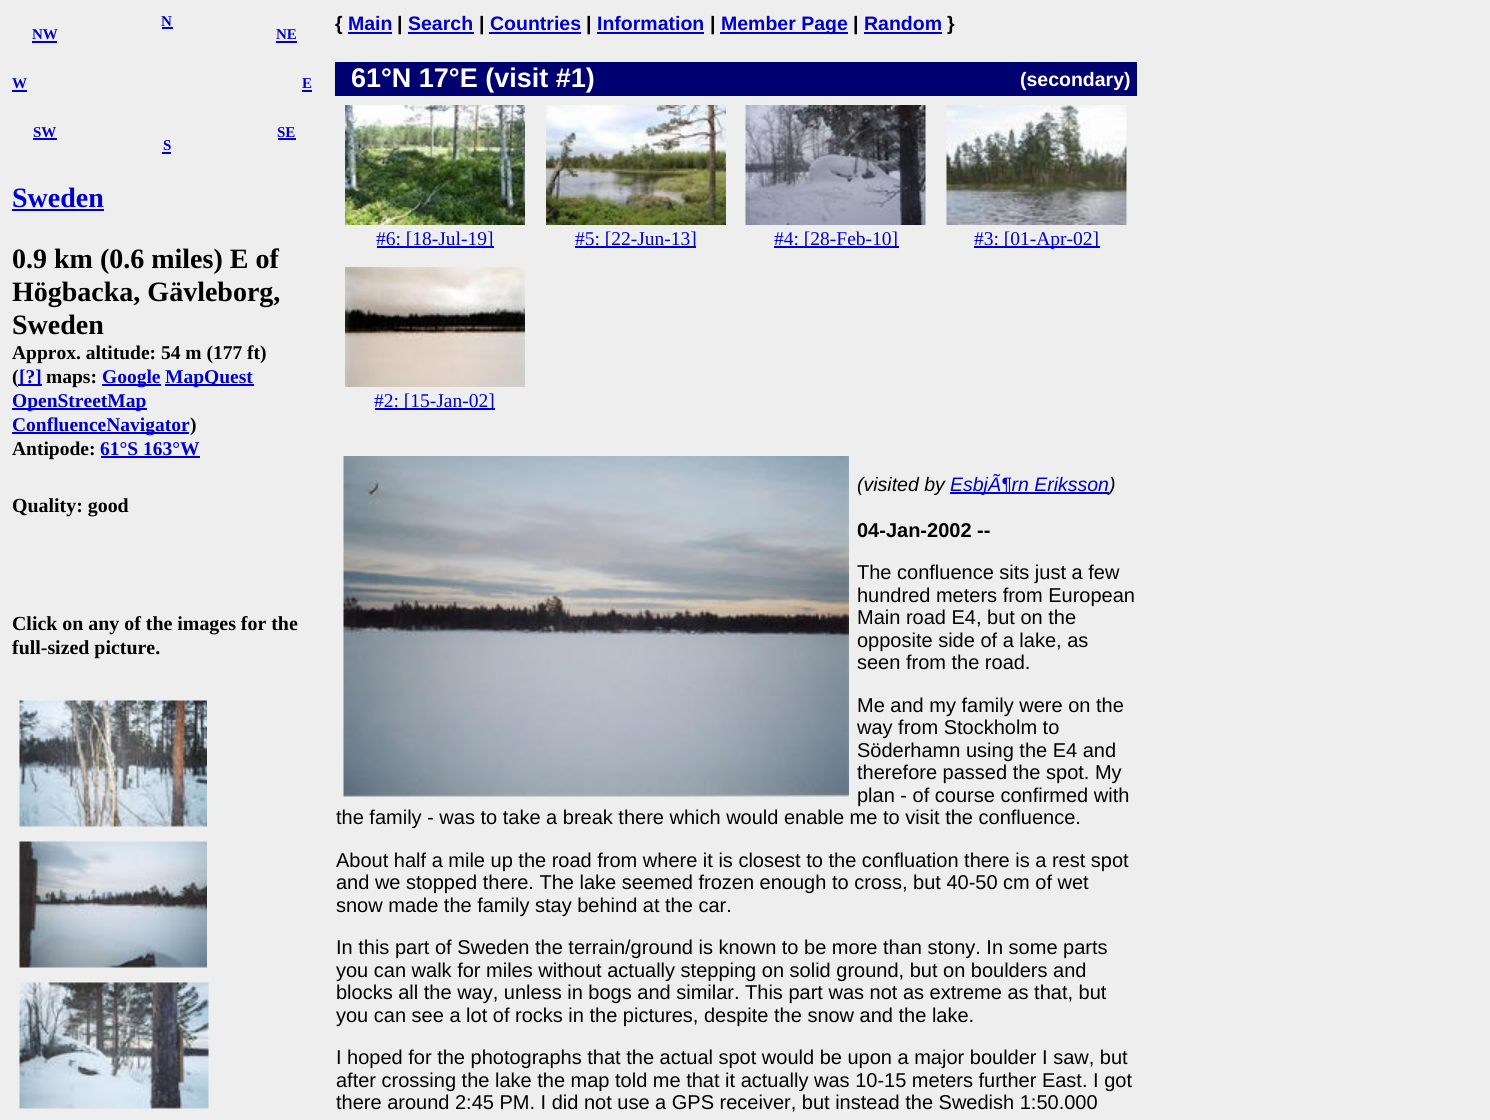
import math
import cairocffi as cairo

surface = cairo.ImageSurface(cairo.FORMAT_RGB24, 1490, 1120)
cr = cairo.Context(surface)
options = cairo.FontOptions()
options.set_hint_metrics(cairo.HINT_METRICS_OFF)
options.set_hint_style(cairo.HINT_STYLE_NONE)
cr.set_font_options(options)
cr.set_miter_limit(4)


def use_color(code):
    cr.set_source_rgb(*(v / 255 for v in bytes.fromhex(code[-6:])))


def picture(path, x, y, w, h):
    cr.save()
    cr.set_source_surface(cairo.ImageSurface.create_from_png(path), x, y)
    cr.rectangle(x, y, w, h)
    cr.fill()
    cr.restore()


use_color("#eeeeee")
cr.paint()
cr.select_font_face("Liberation Serif", cairo.FONT_SLANT_NORMAL, cairo.FONT_WEIGHT_BOLD)
cr.set_font_size(15)
use_color("#0000cc")
cr.move_to(12, 88)
cr.show_text("W")
cr.rectangle(12, 90, 15, 2)
cr.fill()
cr.move_to(161, 26)
cr.show_text("N")
cr.rectangle(162, 27, 11, 2)
cr.fill()
cr.move_to(32, 39)
cr.show_text("NW")
cr.rectangle(32, 41, 25, 2)
cr.fill()
cr.move_to(276, 39)
cr.show_text("NE")
cr.rectangle(276, 41, 21, 2)
cr.fill()
cr.move_to(33, 137)
cr.show_text("SW")
cr.rectangle(33, 138, 24, 2)
cr.fill()
cr.move_to(277, 137)
cr.show_text("SE")
cr.rectangle(278, 138, 18, 2)
cr.fill()
cr.move_to(163, 150)
cr.show_text("S")
cr.rectangle(162, 152, 9, 2)
cr.fill()
cr.move_to(302, 88)
cr.show_text("E")
cr.rectangle(302, 90, 10, 2)
cr.fill()
cr.set_font_size(28)
cr.move_to(12, 207)
cr.show_text("Sweden")
cr.rectangle(12, 209, 92, 2)
cr.fill()
use_color("#000000")
cr.move_to(12, 268)
cr.show_text("0.9 km (0.6 miles) E of")
cr.move_to(12, 301)
cr.show_text("Högbacka, Gävleborg,")
cr.move_to(12, 334)
cr.show_text("Sweden")
cr.set_font_size(19.5)
cr.move_to(12, 359)
cr.show_text("Approx. altitude: 54 m (177 ft)")
cr.move_to(12, 383)
cr.show_text("(")
use_color("#0000cc")
cr.rectangle(18, 384, 24, 2)
cr.fill()
cr.move_to(19, 383)
cr.show_text("[?]")
use_color("#000000")
cr.move_to(46, 383)
cr.show_text("maps:")
use_color("#0000cc")
cr.rectangle(102, 384, 59, 2)
cr.fill()
cr.move_to(102, 383)
cr.show_text("Google")
cr.rectangle(165, 384, 89, 2)
cr.fill()
cr.move_to(165, 383)
cr.show_text("MapQuest")
cr.rectangle(12, 408, 135, 2)
cr.fill()
cr.move_to(12, 407)
cr.show_text("OpenStreetMap")
cr.rectangle(12, 432, 177, 2)
cr.fill()
cr.move_to(12, 431)
cr.show_text("ConfluenceNavigator")
use_color("#000000")
cr.move_to(190, 431)
cr.show_text(")")
cr.move_to(12, 455)
cr.show_text("Antipode:")
use_color("#0000cc")
cr.move_to(100, 455)
cr.show_text("61°S 163°W")
cr.rectangle(101, 456, 99, 2)
cr.fill()
cr.set_font_size(19.9)
use_color("#000000")
cr.move_to(12, 512)
cr.show_text("Quality: good")
cr.move_to(12, 630)
cr.show_text("Click on any of the images for the")
cr.move_to(12, 654)
cr.show_text("full-sized picture.")
picture("img1.png", 19, 700, 188, 127)
picture("img2.png", 19, 841, 188, 127)
picture("img3.png", 19, 982, 190, 127)
cr.select_font_face("Liberation Sans", cairo.FONT_SLANT_NORMAL, cairo.FONT_WEIGHT_BOLD)
cr.set_font_size(19.5)
cr.move_to(335, 30)
cr.show_text("{")
use_color("#0000cc")
cr.move_to(348, 30)
cr.show_text("Main")
cr.rectangle(348, 32, 44, 2)
cr.fill()
use_color("#000000")
cr.move_to(397, 30)
cr.show_text("|")
use_color("#0000cc")
cr.move_to(408, 30)
cr.show_text("Search")
cr.rectangle(408, 32, 66, 2)
cr.fill()
use_color("#000000")
cr.move_to(479, 30)
cr.show_text("|")
use_color("#0000cc")
cr.move_to(490, 30)
cr.show_text("Countries")
cr.rectangle(489, 32, 92, 2)
cr.fill()
use_color("#000000")
cr.move_to(586, 30)
cr.show_text("|")
use_color("#0000cc")
cr.move_to(597, 30)
cr.show_text("Information")
cr.rectangle(597, 32, 107, 2)
cr.fill()
use_color("#000000")
cr.move_to(710, 30)
cr.show_text("|")
use_color("#0000cc")
cr.rectangle(720, 32, 128, 2)
cr.fill()
cr.move_to(721, 30)
cr.show_text("Member Page")
use_color("#000000")
cr.move_to(853, 30)
cr.show_text("|")
use_color("#0000cc")
cr.move_to(864, 30)
cr.show_text("Random")
cr.rectangle(864, 32, 78, 2)
cr.fill()
use_color("#000000")
cr.move_to(947, 30)
cr.show_text("}")
use_color("#000070")
cr.rectangle(335, 62, 802, 34)
cr.fill()
cr.set_font_size(27)
use_color("#ffffff")
cr.move_to(351, 87)
cr.show_text("61°N 17°E (visit #1)")
cr.set_font_size(19.5)
cr.move_to(1020, 86)
cr.show_text("(secondary)")
picture("img4.png", 345, 105, 180, 120)
use_color("#0000cc")
cr.rectangle(377, 246, 117, 2)
cr.fill()
cr.select_font_face("Liberation Serif")
cr.move_to(376, 245)
cr.show_text("#6: [18-Jul-19]")
picture("img5.png", 546, 105, 180, 120)
cr.rectangle(575, 246, 121, 2)
cr.fill()
cr.move_to(575, 245)
cr.show_text("#5: [22-Jun-13]")
picture("img6.png", 745, 105, 181, 120)
cr.rectangle(774, 246, 125, 2)
cr.fill()
cr.move_to(774, 245)
cr.show_text("#4: [28-Feb-10]")
picture("img7.png", 946, 105, 181, 120)
cr.rectangle(974, 246, 126, 2)
cr.fill()
cr.move_to(974, 245)
cr.show_text("#3: [01-Apr-02]")
picture("img8.png", 345, 267, 180, 120)
cr.rectangle(375, 408, 120, 2)
cr.fill()
cr.move_to(374, 407)
cr.show_text("#2: [15-Jan-02]")
picture("img9.png", 343, 456, 506, 341)
cr.select_font_face("Liberation Sans", cairo.FONT_SLANT_ITALIC)
use_color("#000000")
cr.move_to(857, 491)
cr.show_text("(visited by")
use_color("#0000cc")
cr.rectangle(950, 492, 159, 2)
cr.fill()
cr.move_to(950, 491)
cr.show_text("EsbjÃ¶rn Eriksson")
use_color("#000000")
cr.move_to(1109, 491)
cr.show_text(")")
cr.select_font_face("Liberation Sans", cairo.FONT_SLANT_NORMAL, cairo.FONT_WEIGHT_BOLD)
cr.set_font_size(20)
cr.move_to(857, 537)
cr.show_text("04-Jan-2002 --")
cr.select_font_face("Liberation Sans")
cr.move_to(857, 579)
cr.show_text("The confluence sits just a few")
cr.move_to(857, 602)
cr.show_text("hundred meters from European")
cr.move_to(857, 624)
cr.show_text("Main road E4, but on the")
cr.move_to(857, 647)
cr.show_text("opposite side of a lake, as")
cr.move_to(857, 669)
cr.show_text("seen from the road.")
cr.move_to(857, 712)
cr.show_text("Me and my family were on the")
cr.move_to(857, 734)
cr.show_text("way from Stockholm to")
cr.move_to(857, 757)
cr.show_text("Söderhamn using the E4 and")
cr.move_to(857, 779)
cr.show_text("therefore passed the spot. My")
cr.move_to(857, 802)
cr.show_text("plan - of course confirmed with")
cr.move_to(336, 824)
cr.show_text("the family - was to take a break there which would enable me to visit the confluence.")
cr.move_to(336, 867)
cr.show_text("About half a mile up the road from where it is closest to the confluation there is a rest spot")
cr.move_to(336, 889)
cr.show_text("and we stopped there. The lake seemed frozen enough to cross, but 40-50 cm of wet")
cr.move_to(336, 912)
cr.show_text("snow made the family stay behind at the car.")
cr.move_to(336, 954)
cr.show_text("In this part of Sweden the terrain/ground is known to be more than stony. In some parts")
cr.move_to(336, 977)
cr.show_text("you can walk for miles without actually stepping on solid ground, but on boulders and")
cr.move_to(336, 999)
cr.show_text("blocks all the way, unless in bogs and similar. This part was not as extreme as that, but")
cr.move_to(336, 1022)
cr.show_text("you can see a lot of rocks in the pictures, despite the snow and the lake.")
cr.move_to(336, 1064)
cr.show_text("I hoped for the photographs that the actual spot would be upon a major boulder I saw, but")
cr.move_to(336, 1087)
cr.show_text("after crossing the lake the map told me that it actually was 10-15 meters further East. I got")
cr.move_to(336, 1109)
cr.show_text("there around 2:45 PM. I did not use a GPS receiver, but instead the Swedish 1:50.000")
surface.write_to_png("result.png")
